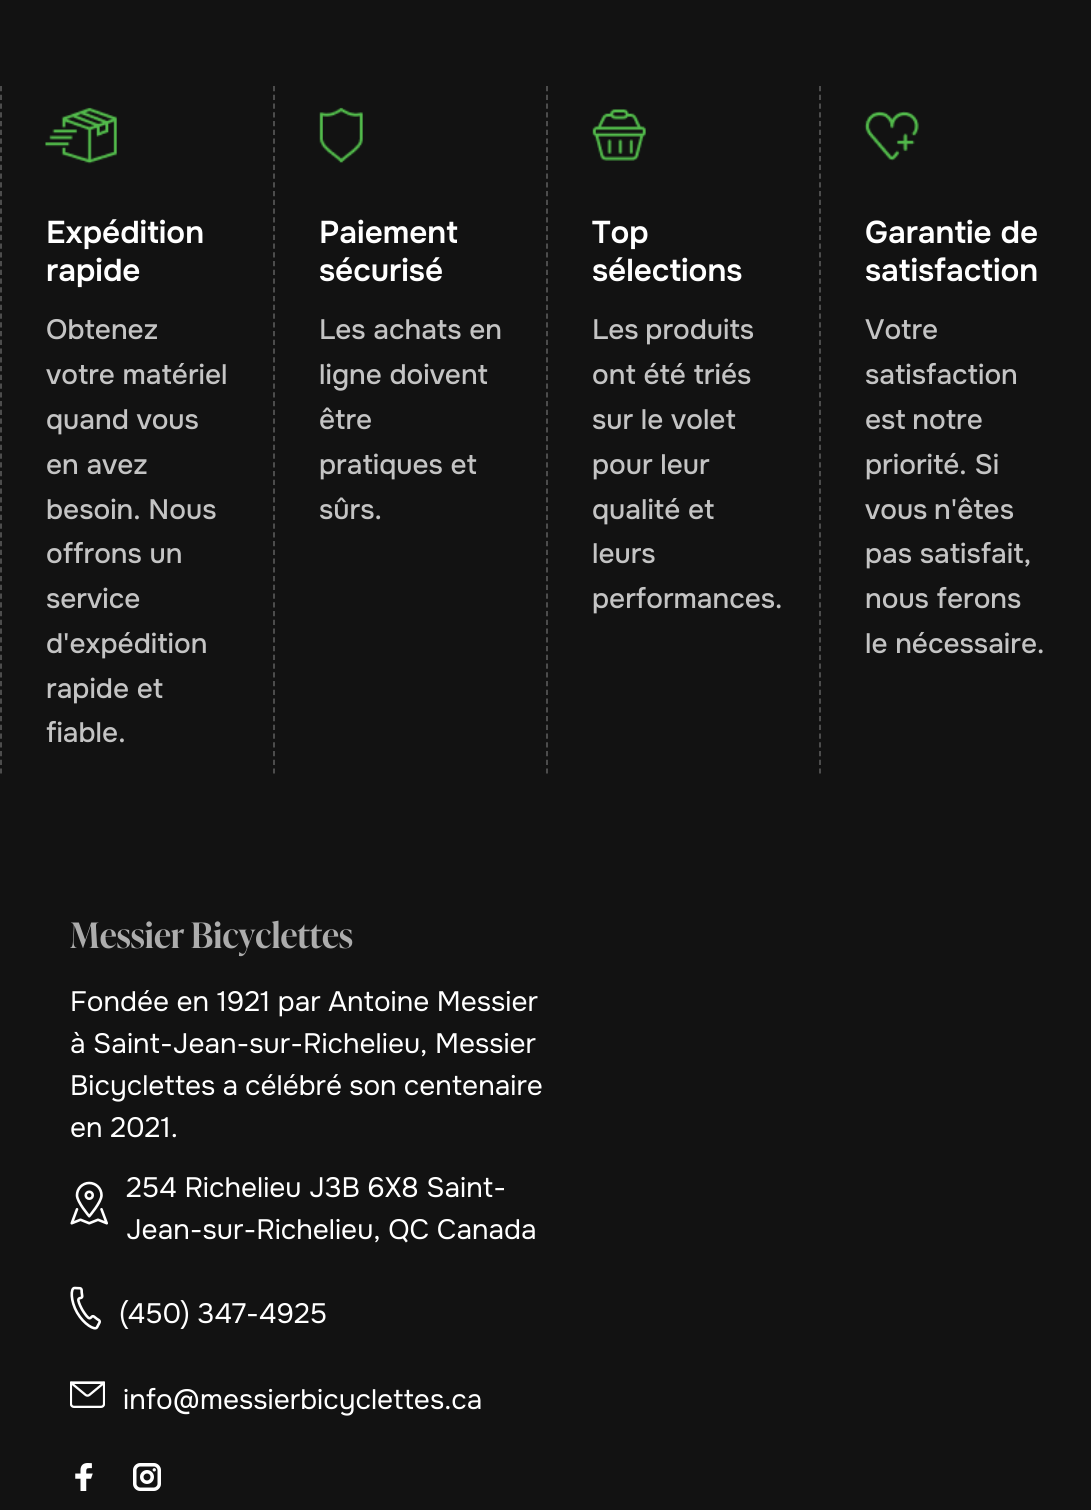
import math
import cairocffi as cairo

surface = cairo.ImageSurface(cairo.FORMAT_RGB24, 1091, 1510)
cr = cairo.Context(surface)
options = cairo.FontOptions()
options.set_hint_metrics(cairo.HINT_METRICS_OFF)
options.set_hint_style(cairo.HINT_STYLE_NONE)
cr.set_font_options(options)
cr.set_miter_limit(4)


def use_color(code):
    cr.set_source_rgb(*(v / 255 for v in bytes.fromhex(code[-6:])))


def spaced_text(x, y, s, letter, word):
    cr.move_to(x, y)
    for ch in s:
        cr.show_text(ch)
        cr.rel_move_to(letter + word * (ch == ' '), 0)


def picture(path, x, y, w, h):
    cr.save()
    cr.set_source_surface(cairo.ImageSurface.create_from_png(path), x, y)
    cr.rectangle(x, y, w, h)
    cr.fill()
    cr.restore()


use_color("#121212")
cr.paint()
cr.new_path()
cr.move_to(1, 86)
cr.line_to(1, 773.5)
use_color("#525252")
cr.set_line_width(1.8)
cr.set_dash([5.25, 3.5])
cr.stroke()
picture("img1.png", 45, 107, 72, 57)
cr.select_font_face("Onest SemiBold")
cr.set_font_size(31.5)
use_color("#ffffff")
cr.move_to(46, 243)
cr.show_text("Expédition")
cr.move_to(46, 281)
cr.show_text("rapide")
cr.select_font_face("Onest Medium")
cr.set_font_size(28)
use_color("#c4c4c4")
cr.move_to(46, 339)
cr.show_text("Obtenez")
cr.move_to(46, 384)
cr.show_text("votre matériel")
cr.move_to(46, 429)
cr.show_text("quand vous")
cr.move_to(46, 474)
cr.show_text("en avez")
cr.move_to(46, 519)
cr.show_text("besoin. Nous")
cr.move_to(46, 563)
cr.show_text("offrons un")
cr.move_to(46, 608)
cr.show_text("service")
cr.move_to(46, 653)
cr.show_text("d'expédition")
cr.move_to(46, 698)
cr.show_text("rapide et")
cr.move_to(46, 742)
cr.show_text("fiable.")
cr.new_path()
cr.move_to(274, 86)
cr.line_to(274, 773.5)
use_color("#525252")
cr.stroke()
picture("img2.png", 319, 107, 44, 56)
cr.select_font_face("Onest SemiBold")
cr.set_font_size(31.5)
use_color("#ffffff")
cr.move_to(319, 243)
cr.show_text("Paiement")
cr.move_to(319, 281)
cr.show_text("sécurisé")
cr.select_font_face("Onest Medium")
cr.set_font_size(28)
use_color("#c4c4c4")
cr.move_to(319, 339)
cr.show_text("Les achats en")
cr.move_to(319, 384)
cr.show_text("ligne doivent")
cr.move_to(319, 429)
cr.show_text("être")
cr.move_to(319, 474)
cr.show_text("pratiques et")
cr.move_to(319, 519)
cr.show_text("sûrs.")
cr.new_path()
cr.move_to(547, 86)
cr.line_to(547, 773.5)
use_color("#525252")
cr.stroke()
picture("img3.png", 592, 109, 54, 52)
cr.select_font_face("Onest SemiBold")
cr.set_font_size(31.5)
use_color("#ffffff")
cr.move_to(592, 243)
cr.show_text("Top")
cr.move_to(592, 281)
cr.show_text("sélections")
cr.select_font_face("Onest Medium")
cr.set_font_size(28)
use_color("#c4c4c4")
spaced_text(592, 339, "Les produits", 0, -1)
cr.move_to(592, 384)
cr.show_text("ont été triés")
cr.move_to(592, 429)
cr.show_text("sur le volet")
cr.move_to(592, 474)
cr.show_text("pour leur")
cr.move_to(592, 519)
cr.show_text("qualité et")
cr.move_to(592, 563)
cr.show_text("leurs")
cr.move_to(592, 608)
cr.show_text("performances.")
cr.new_path()
cr.move_to(820, 86)
cr.line_to(820, 773.5)
use_color("#525252")
cr.stroke()
picture("img4.png", 864, 111, 55, 50)
cr.select_font_face("Onest SemiBold")
cr.set_font_size(31.5)
use_color("#ffffff")
cr.move_to(865, 243)
cr.show_text("Garantie de")
cr.move_to(865, 281)
cr.show_text("satisfaction")
cr.select_font_face("Onest Medium")
cr.set_font_size(28)
use_color("#c4c4c4")
cr.move_to(865, 339)
cr.show_text("Votre")
cr.move_to(865, 384)
cr.show_text("satisfaction")
spaced_text(865, 429, "est notre", 0, -1)
cr.move_to(865, 474)
cr.show_text("priorité. Si")
spaced_text(865, 519, "vous n'êtes", 0, -1)
cr.move_to(865, 563)
cr.show_text("pas satisfait,")
cr.move_to(865, 608)
cr.show_text("nous ferons")
cr.move_to(865, 653)
cr.show_text("le nécessaire.")
cr.select_font_face("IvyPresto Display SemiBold")
cr.set_font_size(35)
use_color("#acacac")
cr.move_to(70, 948)
cr.show_text("Messier Bicyclettes")
cr.select_font_face("Onest")
cr.set_font_size(28)
use_color("#ffffff")
cr.move_to(70, 1011)
cr.show_text("Fondée en 1921 par Antoine Messier")
cr.move_to(70, 1053)
cr.show_text("à Saint-Jean-sur-Richelieu, Messier")
spaced_text(70, 1095, "Bicyclettes a célébré son centenaire", 0, -0.5)
cr.move_to(70, 1137)
cr.show_text("en 2021.")
picture("img5.png", 70, 1181, 38, 44)
cr.move_to(126, 1197)
cr.show_text("254 Richelieu J3B 6X8 Saint-")
cr.move_to(126, 1239)
cr.show_text("Jean-sur-Richelieu, QC Canada")
picture("img6.png", 70, 1286, 31, 44)
cr.move_to(119, 1323)
cr.show_text("(450) 347-4925")
picture("img7.png", 70, 1381, 35, 27)
cr.move_to(123, 1409)
cr.show_text("info@messierbicyclettes.ca")
picture("img8.png", 75, 1463, 18, 28)
picture("img9.png", 133, 1463, 28, 28)
surface.write_to_png("result.png")
